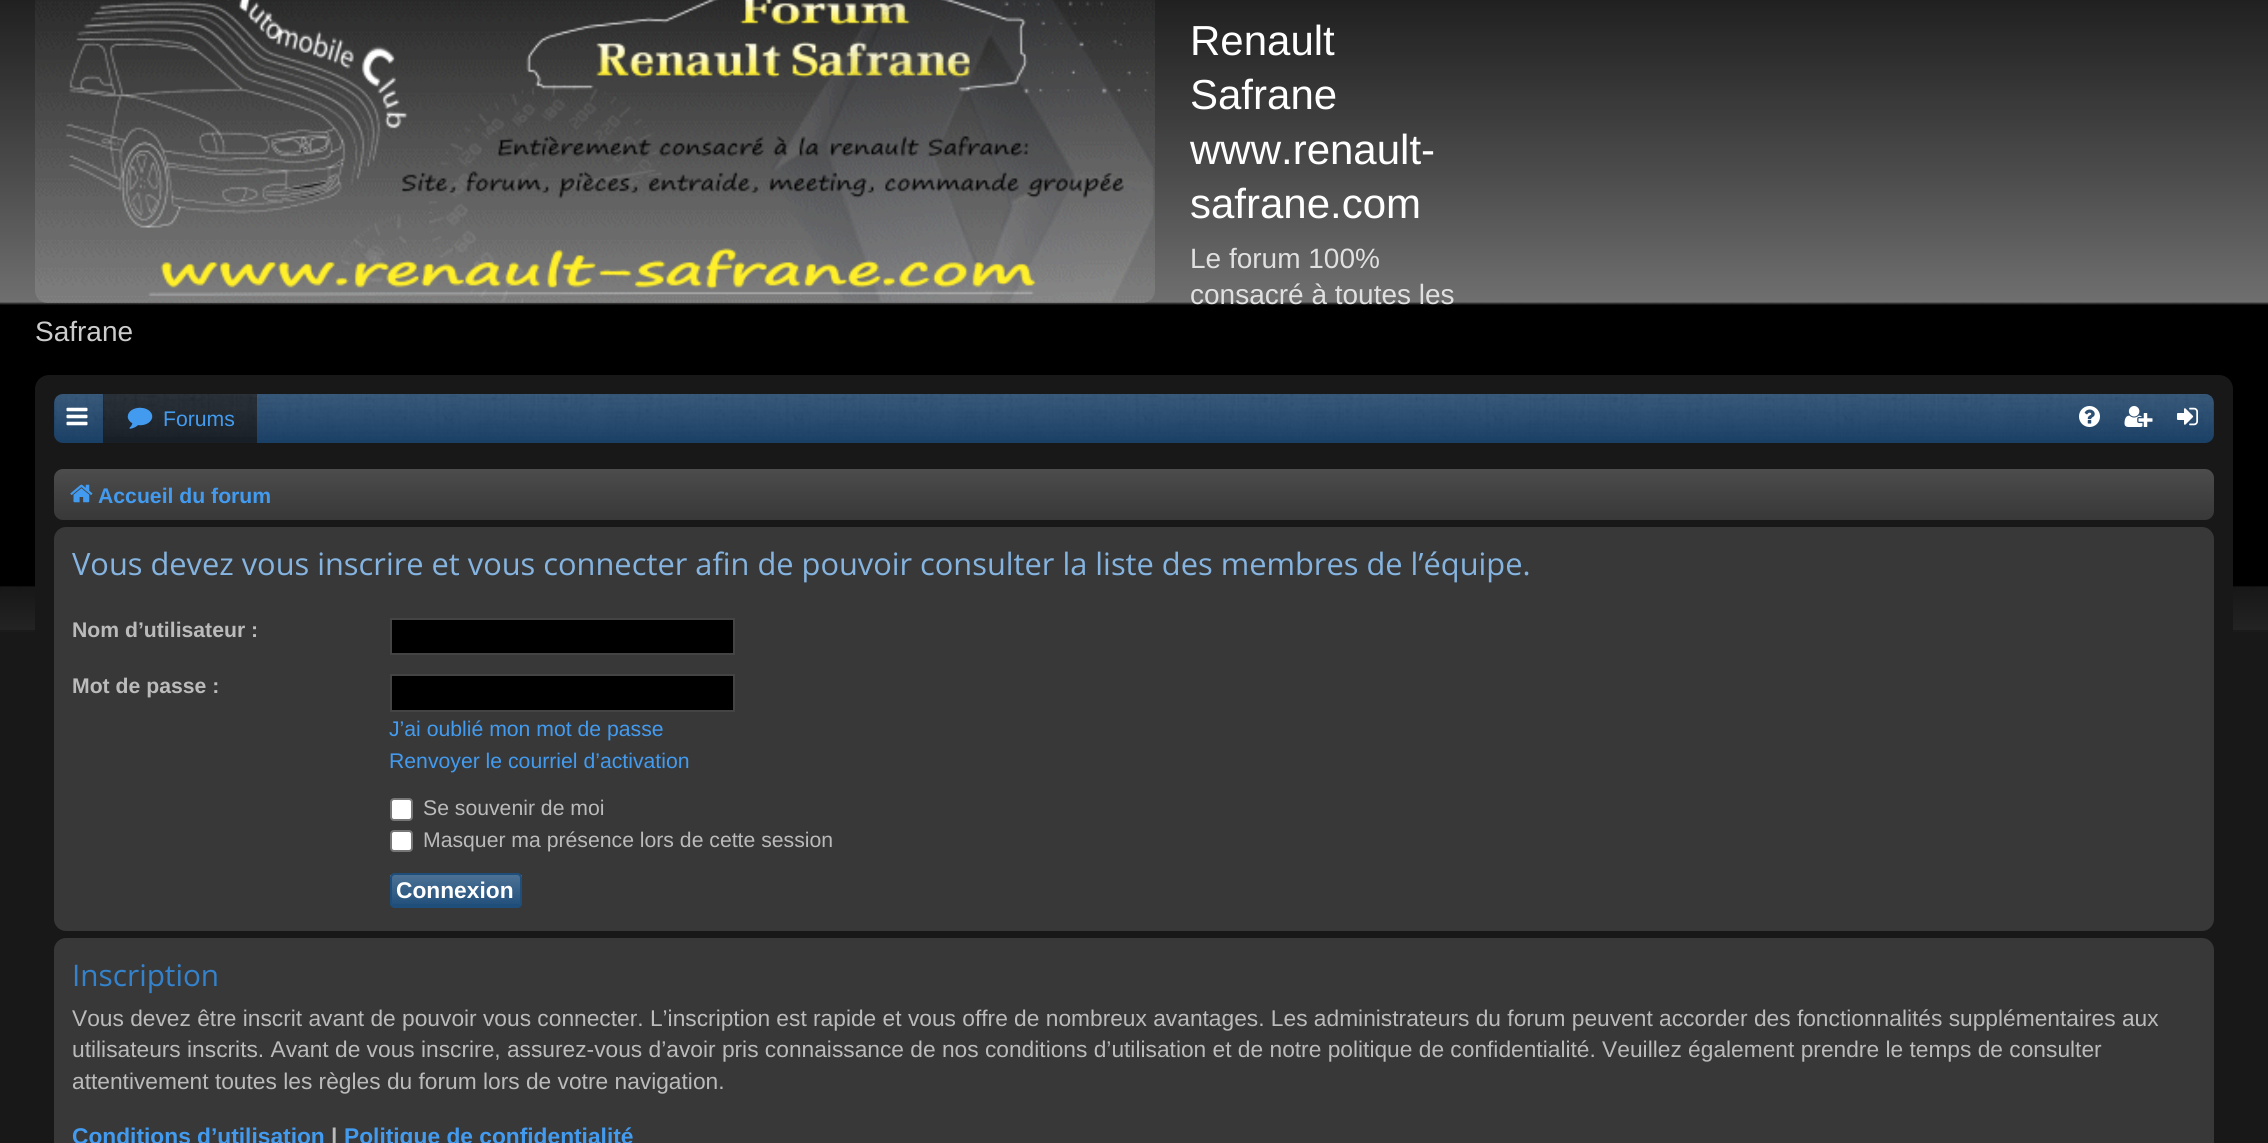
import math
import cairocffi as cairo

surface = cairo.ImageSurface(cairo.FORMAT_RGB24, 2268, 1143)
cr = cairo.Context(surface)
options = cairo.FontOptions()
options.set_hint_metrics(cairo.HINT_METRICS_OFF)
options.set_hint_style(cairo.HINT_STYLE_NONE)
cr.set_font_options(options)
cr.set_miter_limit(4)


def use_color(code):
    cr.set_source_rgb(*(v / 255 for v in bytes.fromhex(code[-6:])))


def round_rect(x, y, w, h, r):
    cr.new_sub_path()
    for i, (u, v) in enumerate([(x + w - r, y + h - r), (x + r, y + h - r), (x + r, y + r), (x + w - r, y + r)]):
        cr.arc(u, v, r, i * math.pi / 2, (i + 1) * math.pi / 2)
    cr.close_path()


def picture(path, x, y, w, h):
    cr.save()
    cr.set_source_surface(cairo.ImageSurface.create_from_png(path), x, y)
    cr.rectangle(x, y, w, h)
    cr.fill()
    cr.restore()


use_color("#181818")
cr.paint()
picture("img1.png", 0, 0, 2268, 632)
picture("img2.png", 35, 0, 1120, 303)
cr.select_font_face("Liberation Sans")
cr.set_font_size(42)
use_color("#ffffff")
cr.move_to(1190, 55)
cr.show_text("Renault")
cr.move_to(1190, 109)
cr.show_text("Safrane")
cr.move_to(1190, 164)
cr.show_text("www.renault-")
cr.move_to(1190, 218)
cr.show_text("safrane.com")
cr.set_font_size(28)
use_color("#e0e0e0")
cr.move_to(1190, 268)
cr.show_text("Le forum 100%")
cr.move_to(1190, 304)
cr.show_text("consacré à toutes les")
use_color("#cccccc")
cr.move_to(35, 341)
cr.show_text("Safrane")
use_color("#181818")
round_rect(36, 376, 2196, 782, 13)
cr.fill_preserve()
cr.stroke()
use_color("#1a4066")
round_rect(54, 394, 2160, 49, 9)
cr.fill()
picture("img3.png", 54, 394, 2160, 46)
picture("img4.png", 66, 407, 22, 19)
use_color("#181f27")
cr.rectangle(103, 394, 154, 49)
cr.fill()
picture("img5.png", 103, 394, 154, 43)
picture("img6.png", 127, 407, 26, 22)
cr.set_font_size(21.2)
use_color("#439bef")
cr.move_to(163, 426)
cr.show_text("Forums")
picture("img7.png", 2079, 406, 21, 21)
picture("img8.png", 2124, 406, 29, 21)
picture("img9.png", 2177, 407, 21, 19)
use_color("#383838")
round_rect(54, 469, 2160, 51, 9)
cr.fill()
gradient = cairo.LinearGradient(1134, 469, 1134, 520)
gradient.add_color_stop_rgba(0, 1, 1, 1, 0.1)
gradient.add_color_stop_rgba(1, 1, 1, 1, 0)
cr.set_source(gradient)
round_rect(54, 469, 2160, 51, 9)
cr.fill()
picture("img10.png", 70, 484, 23, 19)
cr.select_font_face("Liberation Sans", cairo.FONT_SLANT_NORMAL, cairo.FONT_WEIGHT_BOLD)
use_color("#439bef")
cr.move_to(98, 503)
cr.show_text("Accueil du forum")
use_color("#383838")
round_rect(54, 527, 2160, 404, 12)
cr.fill()
cr.select_font_face("Open Sans")
cr.set_font_size(30.8)
use_color("#85b4e0")
cr.move_to(72, 575)
cr.show_text("Vous devez vous inscrire et vous connecter afin de pouvoir consulter la liste des membres de l’équipe.")
cr.select_font_face("Liberation Sans", cairo.FONT_SLANT_NORMAL, cairo.FONT_WEIGHT_BOLD)
cr.set_font_size(21.2)
use_color("#bbbbbb")
cr.move_to(72, 637)
cr.show_text("Nom d’utilisateur :")
use_color("#000000")
cr.rectangle(391, 619, 343, 35)
cr.fill_preserve()
use_color("#444444")
cr.stroke()
use_color("#bbbbbb")
cr.move_to(72, 693)
cr.show_text("Mot de passe :")
use_color("#000000")
cr.rectangle(391, 675, 343, 36)
cr.fill_preserve()
use_color("#444444")
cr.stroke()
cr.select_font_face("Liberation Sans")
use_color("#439bef")
cr.move_to(389, 736)
cr.show_text("J’ai oublié mon mot de passe")
cr.move_to(389, 768)
cr.show_text("Renvoyer le courriel d’activation")
use_color("#ffffff")
round_rect(391, 799, 21, 21, 3)
cr.fill_preserve()
use_color("#767676")
cr.stroke()
use_color("#bbbbbb")
cr.move_to(423, 815)
cr.show_text("Se souvenir de moi")
use_color("#ffffff")
round_rect(391, 831, 21, 20, 3)
cr.fill_preserve()
use_color("#767676")
cr.stroke()
use_color("#bbbbbb")
cr.move_to(423, 847)
cr.show_text("Masquer ma présence lors de cette session")
use_color("#1f4e7a")
round_rect(390, 873, 132, 35, 5)
cr.fill()
gradient = cairo.LinearGradient(456, 875, 456, 907)
gradient.add_color_stop_rgba(0, 1, 1, 1, 0.2)
gradient.add_color_stop_rgba(1, 1, 1, 1, 0)
cr.set_source(gradient)
cr.rectangle(390, 875, 132, 29)
cr.fill()
round_rect(391, 874, 130, 33, 4)
use_color("#1f4e7a")
cr.stroke()
cr.select_font_face("Liberation Sans", cairo.FONT_SLANT_NORMAL, cairo.FONT_WEIGHT_BOLD)
cr.set_font_size(22.75)
use_color("#ffffff")
cr.move_to(396, 898)
cr.show_text("Connexion")
use_color("#383838")
round_rect(54, 938, 2160, 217, 12)
cr.fill()
cr.select_font_face("Open Sans")
cr.set_font_size(29.75)
use_color("#3482cb")
cr.move_to(72, 986)
cr.show_text("Inscription")
cr.select_font_face("Liberation Sans")
cr.set_font_size(22.75)
use_color("#bbbbbb")
cr.move_to(72, 1026)
cr.show_text("Vous devez être inscrit avant de pouvoir vous connecter. L’inscription est rapide et vous offre de nombreux avantages. Les administrateurs du forum peuvent accorder des fonctionnalités supplémentaires aux")
cr.move_to(72, 1057)
cr.show_text("utilisateurs inscrits. Avant de vous inscrire, assurez-vous d’avoir pris connaissance de nos conditions d’utilisation et de notre politique de confidentialité. Veuillez également prendre le temps de consulter")
cr.move_to(72, 1089)
cr.show_text("attentivement toutes les règles du forum lors de votre navigation.")
cr.select_font_face("Liberation Sans", cairo.FONT_SLANT_NORMAL, cairo.FONT_WEIGHT_BOLD)
use_color("#439bef")
cr.move_to(72, 1144)
cr.show_text("Conditions d’utilisation")
use_color("#bbbbbb")
cr.move_to(331, 1144)
cr.show_text("|")
use_color("#439bef")
cr.move_to(344, 1144)
cr.show_text("Politique de confidentialité")
surface.write_to_png("result.png")
